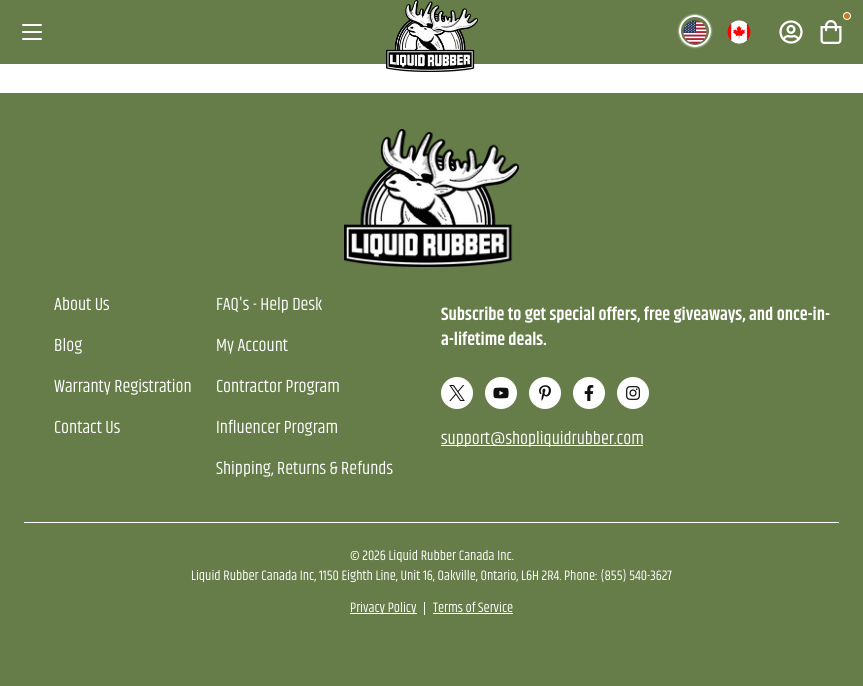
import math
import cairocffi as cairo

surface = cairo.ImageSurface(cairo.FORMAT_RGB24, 863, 686)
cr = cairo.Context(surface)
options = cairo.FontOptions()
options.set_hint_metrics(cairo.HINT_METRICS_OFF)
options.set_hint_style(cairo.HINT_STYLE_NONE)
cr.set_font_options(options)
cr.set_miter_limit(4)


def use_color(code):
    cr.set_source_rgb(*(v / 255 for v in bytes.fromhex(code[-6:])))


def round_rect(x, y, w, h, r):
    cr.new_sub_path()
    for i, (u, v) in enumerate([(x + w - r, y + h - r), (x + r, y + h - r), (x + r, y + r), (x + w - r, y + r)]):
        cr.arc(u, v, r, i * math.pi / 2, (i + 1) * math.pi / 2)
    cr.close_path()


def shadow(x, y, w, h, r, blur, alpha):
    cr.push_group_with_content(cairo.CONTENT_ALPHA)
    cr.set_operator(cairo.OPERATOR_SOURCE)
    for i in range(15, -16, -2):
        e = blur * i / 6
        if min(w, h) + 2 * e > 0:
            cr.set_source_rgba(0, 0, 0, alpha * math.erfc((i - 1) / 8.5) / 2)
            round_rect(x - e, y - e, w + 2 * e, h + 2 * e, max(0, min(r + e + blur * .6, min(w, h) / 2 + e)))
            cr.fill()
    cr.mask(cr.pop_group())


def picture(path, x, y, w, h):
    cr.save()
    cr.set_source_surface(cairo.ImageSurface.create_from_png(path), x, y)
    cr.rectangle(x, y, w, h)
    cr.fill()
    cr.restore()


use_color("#ffffff")
cr.paint()
use_color("#667c49")
cr.rectangle(0, 0, 863, 64)
cr.fill()
use_color("#ffffff")
round_rect(22, 24, 20, 2, 1)
cr.fill()
round_rect(22, 31, 20, 2, 1)
cr.fill()
round_rect(22, 38, 20, 2, 1)
cr.fill()
picture("img1.png", 386, 0, 92, 72)
cr.save()
cr.set_fill_rule(cairo.FILL_RULE_EVEN_ODD)
cr.new_path()
cr.move_to(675, 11)
cr.line_to(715, 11)
cr.line_to(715, 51)
cr.line_to(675, 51)
cr.close_path()
cr.move_to(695, 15)
cr.curve_to(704, 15, 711, 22, 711, 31)
cr.curve_to(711, 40, 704, 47, 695, 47)
cr.curve_to(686, 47, 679, 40, 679, 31)
cr.curve_to(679, 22, 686, 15, 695, 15)
cr.close_path()
cr.clip()
use_color("#ffffff")
shadow(679, 15, 32, 32, 16, 1, 1)
cr.restore()
cr.arc(695, 31, 15, 0, 2 * math.pi)
cr.stroke()
picture("img2.png", 683, 20, 24, 24)
picture("img3.png", 727, 20, 24, 24)
picture("img4.png", 779, 20, 24, 24)
use_color("#c57e1b")
cr.arc(847, 16, 3.5, 0, 2 * math.pi)
cr.fill_preserve()
use_color("#ffffff")
cr.set_line_width(1)
cr.stroke()
picture("img5.png", 820, 20, 22, 24)
use_color("#667c49")
cr.rectangle(0, 93, 863, 593)
cr.fill()
picture("img6.png", 344, 129, 175, 138)
cr.select_font_face("Khand")
cr.set_font_size(18)
use_color("#ffffff")
cr.move_to(54, 310)
cr.show_text("About Us")
cr.move_to(54, 351)
cr.show_text("Blog")
cr.move_to(54, 392)
cr.show_text("Warranty Registration")
cr.move_to(54, 433)
cr.show_text("Contact Us")
cr.move_to(216, 310)
cr.show_text("FAQ's - Help Desk")
cr.move_to(216, 351)
cr.show_text("My Account")
cr.move_to(216, 392)
cr.show_text("Contractor Program")
cr.move_to(216, 433)
cr.show_text("Influencer Program")
cr.move_to(216, 474)
cr.show_text("Shipping, Returns & Refunds")
cr.select_font_face("Khand SemiBold")
cr.move_to(441, 320)
cr.show_text("Subscribe to get special offers, free giveaways, and once-in-")
cr.move_to(441, 345)
cr.show_text("a-lifetime deals.")
cr.new_path()
cr.arc(457, 393, 16, 0, 2 * math.pi)
cr.fill()
picture("img7.png", 449, 385, 16, 16)
cr.arc(501, 393, 16, 0, 2 * math.pi)
cr.fill()
picture("img8.png", 493, 387, 16, 12)
cr.arc(545, 393, 16, 0, 2 * math.pi)
cr.fill()
picture("img9.png", 539, 385, 12, 16)
cr.arc(589, 393, 16, 0, 2 * math.pi)
cr.fill()
picture("img10.png", 584, 385, 10, 16)
cr.arc(633, 393, 16, 0, 2 * math.pi)
cr.fill()
picture("img11.png", 626, 386, 14, 14)
cr.rectangle(441, 445, 202, 1)
cr.fill()
cr.select_font_face("Khand")
cr.move_to(441, 444)
cr.show_text("support@shopliquidrubber.com")
cr.rectangle(24, 522, 815, 1)
cr.fill()
cr.set_font_size(14)
cr.move_to(350, 560)
cr.show_text("© 2026 Liquid Rubber Canada Inc.")
cr.move_to(191, 580)
cr.show_text("Liquid Rubber Canada Inc, 1150 Eighth Line, Unit 16, Oakville, Ontario, L6H 2R4. Phone: (855) 540-3627")
cr.rectangle(350, 613, 67, 1)
cr.fill()
cr.move_to(350, 612)
cr.show_text("Privacy Policy")
cr.rectangle(424, 602, 1, 13)
cr.fill()
cr.move_to(433, 612)
cr.show_text("Terms of Service")
cr.rectangle(433, 613, 80, 1)
cr.fill()
surface.write_to_png("result.png")
